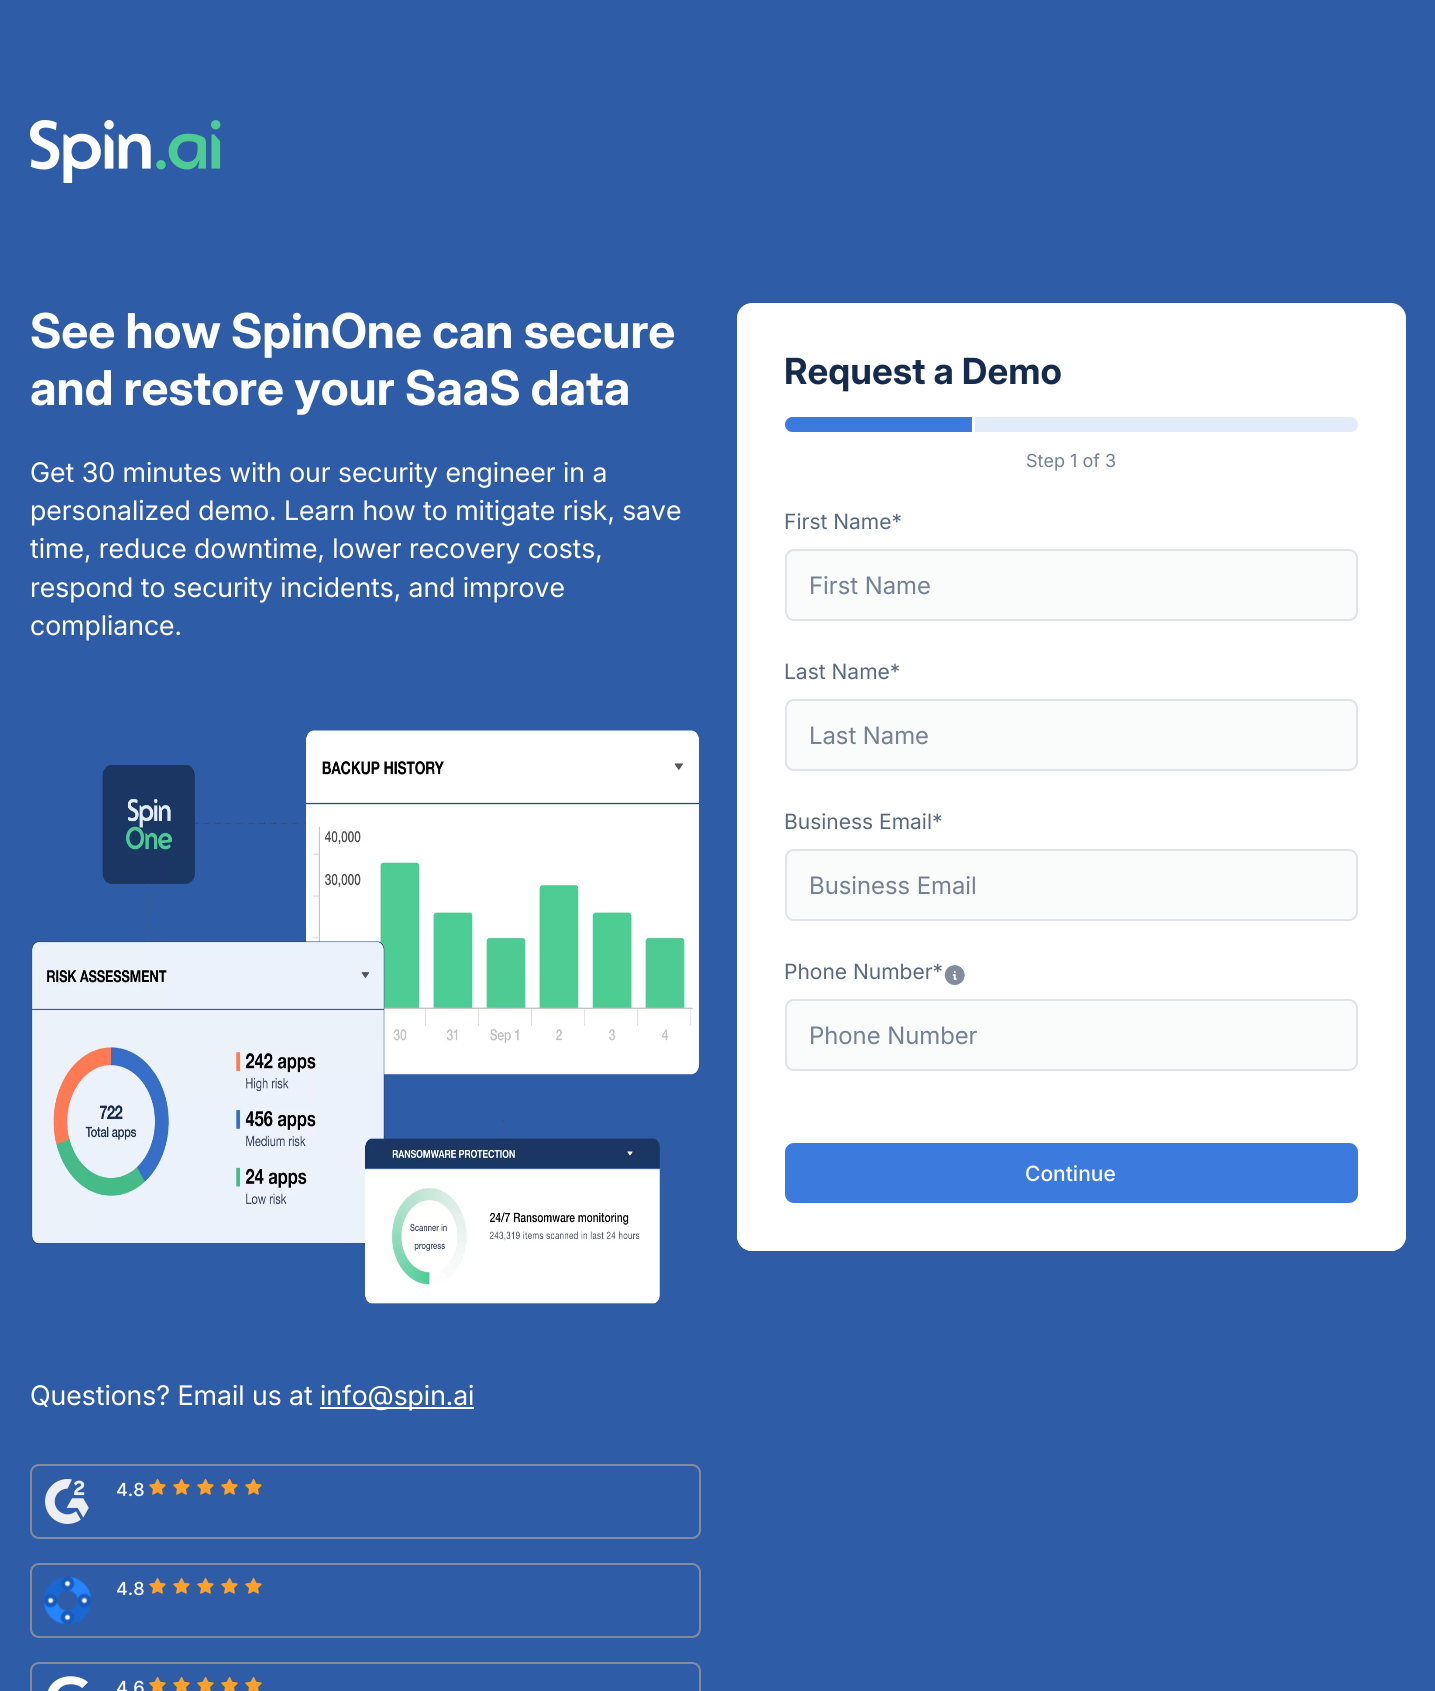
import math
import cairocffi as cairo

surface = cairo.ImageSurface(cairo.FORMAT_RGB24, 1435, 1691)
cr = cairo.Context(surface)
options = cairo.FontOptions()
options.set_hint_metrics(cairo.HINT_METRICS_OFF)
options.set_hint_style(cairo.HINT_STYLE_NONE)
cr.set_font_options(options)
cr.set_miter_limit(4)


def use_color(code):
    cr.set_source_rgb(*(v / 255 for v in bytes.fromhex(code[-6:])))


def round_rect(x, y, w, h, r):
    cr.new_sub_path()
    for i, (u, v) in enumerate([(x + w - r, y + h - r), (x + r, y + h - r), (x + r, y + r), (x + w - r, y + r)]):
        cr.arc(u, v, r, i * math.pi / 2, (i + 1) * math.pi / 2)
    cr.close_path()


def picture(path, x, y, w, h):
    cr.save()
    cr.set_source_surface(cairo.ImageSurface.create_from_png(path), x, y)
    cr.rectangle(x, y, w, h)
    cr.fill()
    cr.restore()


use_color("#2e5ca7")
cr.paint()
picture("img1.png", 30, 120, 191, 63)
cr.select_font_face("Inter", cairo.FONT_SLANT_NORMAL, cairo.FONT_WEIGHT_BOLD)
cr.set_font_size(48)
use_color("#ffffff")
cr.move_to(30, 348)
cr.show_text("See how SpinOne can secure")
cr.move_to(30, 405)
cr.show_text("and restore your SaaS data")
cr.select_font_face("Inter")
cr.set_font_size(27)
cr.move_to(30, 482)
cr.show_text("Get 30 minutes with our security engineer in a")
cr.move_to(30, 520)
cr.show_text("personalized demo. Learn how to mitigate risk, save")
cr.move_to(30, 558)
cr.show_text("time, reduce downtime, lower recovery costs,")
cr.move_to(30, 597)
cr.show_text("respond to security incidents, and improve")
cr.move_to(30, 635)
cr.show_text("compliance.")
picture("img2.png", 31, 730, 668, 574)
cr.move_to(30, 1405)
cr.show_text("Questions? Email us at")
cr.rectangle(320, 1407, 154, 2)
cr.fill()
cr.move_to(320, 1405)
cr.show_text("info@spin.ai")
round_rect(31, 1465, 669, 73, 8)
use_color("#818d9f")
cr.stroke()
picture("img3.png", 45, 1479, 44, 45)
cr.select_font_face("Inter Medium")
cr.set_font_size(18)
use_color("#ffffff")
cr.move_to(116, 1496)
cr.show_text("4.8")
picture("img4.png", 149, 1479, 113, 16)
round_rect(31, 1564, 669, 73, 8)
use_color("#818d9f")
cr.stroke()
picture("img5.png", 44, 1577, 48, 48)
use_color("#ffffff")
cr.move_to(116, 1595)
cr.show_text("4.8")
picture("img4.png", 149, 1578, 113, 16)
round_rect(31, 1663, 669, 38, 8)
use_color("#818d9f")
cr.stroke()
picture("img6.png", 47, 1676, 41, 15)
use_color("#ffffff")
cr.move_to(116, 1694)
cr.show_text("4.6")
picture("img7.png", 149, 1677, 113, 14)
round_rect(737, 303, 669, 948, 15)
cr.fill()
cr.select_font_face("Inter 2", cairo.FONT_SLANT_NORMAL, cairo.FONT_WEIGHT_BOLD)
cr.set_font_size(36)
use_color("#152b4e")
cr.move_to(784, 384)
cr.show_text("Request a Demo")
use_color("#ffffff")
round_rect(737, 417, 669, 834, 15)
cr.fill()
use_color("#e2ebfa")
round_rect(785, 417, 573, 15, 7.5)
cr.fill()
use_color("#3d7ade")
cr.new_path()
cr.move_to(792.5, 417)
cr.line_to(975, 417)
cr.line_to(975, 432)
cr.line_to(792.5, 432)
cr.curve_to(788.5, 432, 785, 428.5, 785, 424.5)
cr.curve_to(785, 420.5, 788.5, 417, 792.5, 417)
cr.close_path()
cr.fill()
use_color("#ffffff")
cr.rectangle(972, 417, 3, 15)
cr.fill()
cr.select_font_face("Inter 2")
cr.set_font_size(18)
use_color("#738095")
cr.move_to(1026, 467)
cr.show_text("Step 1 of 3")
cr.set_font_size(21)
use_color("#596881")
cr.move_to(784, 529)
cr.show_text("First Name*")
use_color("#fafbfb")
round_rect(786, 550, 571, 70, 8)
cr.fill_preserve()
use_color("#e1e3e8")
cr.stroke()
cr.select_font_face("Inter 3")
cr.set_font_size(24)
use_color("#738095")
cr.move_to(809, 594)
cr.show_text("First Name")
cr.select_font_face("Inter 2")
cr.set_font_size(21)
use_color("#596881")
cr.move_to(784, 679)
cr.show_text("Last Name*")
use_color("#fafbfb")
round_rect(786, 700, 571, 70, 8)
cr.fill_preserve()
use_color("#e1e3e8")
cr.stroke()
cr.select_font_face("Inter 3")
cr.set_font_size(24)
use_color("#738095")
cr.move_to(809, 744)
cr.show_text("Last Name")
cr.select_font_face("Inter 2")
cr.set_font_size(21)
use_color("#596881")
cr.move_to(784, 829)
cr.show_text("Business Email*")
use_color("#fafbfb")
round_rect(786, 850, 571, 70, 8)
cr.fill_preserve()
use_color("#e1e3e8")
cr.stroke()
cr.select_font_face("Inter 3")
cr.set_font_size(24)
use_color("#738095")
cr.move_to(809, 894)
cr.show_text("Business Email")
cr.select_font_face("Inter 2")
cr.set_font_size(21)
use_color("#596881")
cr.move_to(784, 979)
cr.show_text("Phone Number*")
picture("img8.png", 944, 965, 21, 20)
use_color("#fafbfb")
round_rect(786, 1000, 571, 70, 8)
cr.fill_preserve()
use_color("#e1e3e8")
cr.stroke()
cr.select_font_face("Inter 3")
cr.set_font_size(24)
use_color("#738095")
cr.move_to(809, 1044)
cr.show_text("Phone Number")
use_color("#3d7ade")
round_rect(785, 1143, 573, 60, 9)
cr.fill()
cr.select_font_face("Inter Medium")
cr.set_font_size(21)
use_color("#ffffff")
cr.move_to(1025, 1181)
cr.show_text("Continue")
surface.write_to_png("result.png")
